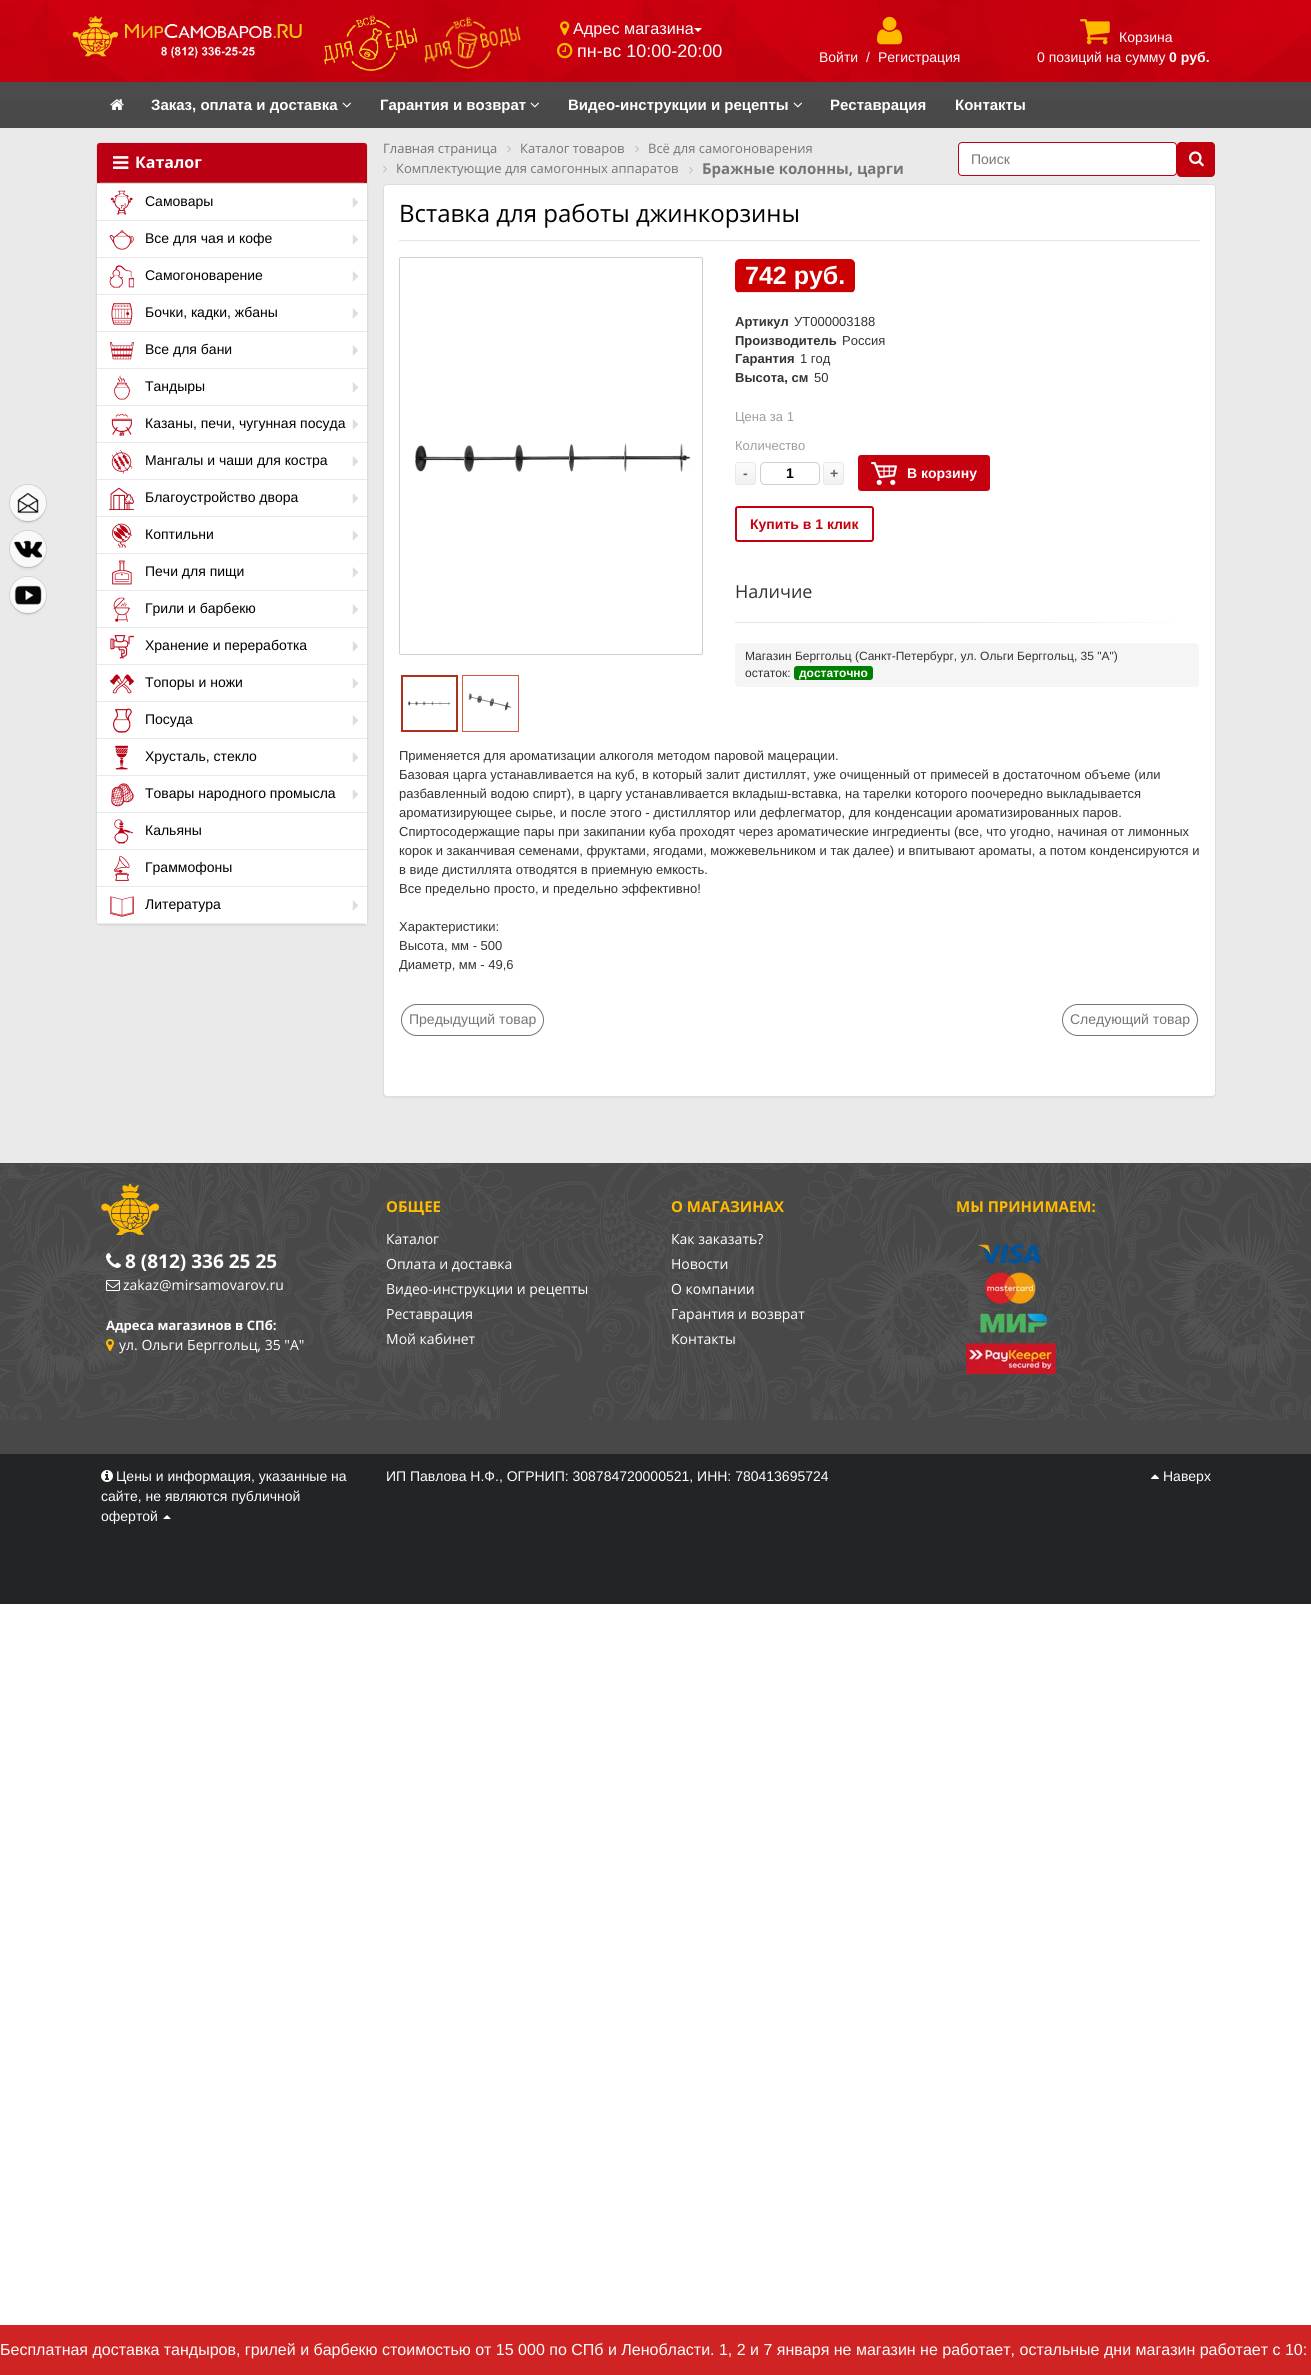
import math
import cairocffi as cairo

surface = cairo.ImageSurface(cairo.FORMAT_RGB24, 1311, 2375)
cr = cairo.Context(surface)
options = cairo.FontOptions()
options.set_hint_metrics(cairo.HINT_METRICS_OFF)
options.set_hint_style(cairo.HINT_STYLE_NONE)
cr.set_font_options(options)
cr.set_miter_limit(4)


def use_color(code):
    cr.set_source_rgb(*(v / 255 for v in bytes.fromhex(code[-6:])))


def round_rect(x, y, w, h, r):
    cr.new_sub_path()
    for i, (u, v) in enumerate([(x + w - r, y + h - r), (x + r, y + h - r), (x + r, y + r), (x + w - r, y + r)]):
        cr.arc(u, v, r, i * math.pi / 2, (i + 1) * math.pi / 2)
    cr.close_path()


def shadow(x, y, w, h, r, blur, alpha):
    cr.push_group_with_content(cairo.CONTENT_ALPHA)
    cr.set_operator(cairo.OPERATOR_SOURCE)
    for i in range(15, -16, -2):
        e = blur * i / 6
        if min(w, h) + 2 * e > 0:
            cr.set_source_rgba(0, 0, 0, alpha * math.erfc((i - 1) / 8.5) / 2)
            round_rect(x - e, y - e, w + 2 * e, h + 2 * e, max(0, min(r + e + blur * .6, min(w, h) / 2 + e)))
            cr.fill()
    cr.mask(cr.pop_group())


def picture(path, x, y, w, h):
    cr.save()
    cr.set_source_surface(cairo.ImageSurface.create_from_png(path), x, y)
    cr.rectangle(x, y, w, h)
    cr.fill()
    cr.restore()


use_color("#ffffff")
cr.paint()
use_color("#eaeaea")
cr.rectangle(0, 128, 1311, 1035)
cr.fill()
use_color("#494949")
cr.rectangle(0, 102, 1311, 26)
cr.fill()
use_color("#4b4b4b")
cr.rectangle(0, 82, 1311, 18)
cr.fill()
use_color("#4a4949")
cr.rectangle(0, 100, 1311, 2)
cr.fill()
picture("img1.png", 0, 0, 1311, 82)
picture("img2.png", 72, 16, 230, 43)
picture("img3.png", 324, 15, 94, 56)
picture("img4.png", 424, 17, 97, 52)
picture("img5.png", 560, 21, 10, 15)
cr.select_font_face("Liberation Sans")
cr.set_font_size(16.25)
use_color("#ffffff")
cr.move_to(573, 34)
cr.show_text("Адрес магазина")
cr.new_path()
cr.move_to(694, 28)
cr.line_to(702, 28)
cr.line_to(698, 32)
cr.close_path()
cr.fill()
picture("img6.png", 557, 42, 16, 17)
cr.set_font_size(18)
cr.move_to(577, 57)
cr.show_text("пн-вс 10:00-20:00")
picture("img7.png", 877, 16, 26, 29)
cr.set_font_size(14)
cr.move_to(819, 62)
cr.show_text("Войти")
cr.move_to(866, 62)
cr.show_text("/")
cr.move_to(878, 62)
cr.show_text("Регистрация")
picture("img8.png", 1080, 19, 30, 26)
cr.move_to(1119, 42)
cr.show_text("Корзина")
cr.move_to(1037, 62)
cr.show_text("0 позиций на сумму")
cr.select_font_face("Liberation Sans", cairo.FONT_SLANT_NORMAL, cairo.FONT_WEIGHT_BOLD)
cr.move_to(1169, 62)
cr.show_text("0 руб.")
picture("img9.png", 110, 99, 14, 11)
cr.set_font_size(15)
cr.move_to(151, 110)
cr.show_text("Заказ, оплата и доставка")
picture("img10.png", 342, 102, 9, 6)
cr.move_to(380, 110)
cr.show_text("Гарантия и возврат")
picture("img10.png", 530, 102, 9, 6)
cr.move_to(568, 110)
cr.show_text("Видео-инструкции и рецепты")
picture("img10.png", 793, 102, 9, 6)
cr.move_to(830, 110)
cr.show_text("Реставрация")
cr.move_to(955, 110)
cr.show_text("Контакты")
use_color("#d02323")
cr.rectangle(0, 2325, 1311, 50)
cr.fill()
cr.select_font_face("Liberation Sans")
cr.set_font_size(16)
use_color("#ffffff")
cr.move_to(0, 2355)
cr.show_text("Бесплатная доставка тандыров, грилей и барбекю стоимостью от 15 000 по СПб и Ленобласти. 1, 2 и 7 января не магазин не работает, остальные дни магазин работает с 10:")
use_color("#000000")
shadow(96, 143, 272, 783, 4, 0.5, 0.05)
round_rect(96.5, 142.5, 271, 782, 3.5)
use_color("#dddddd")
cr.set_line_width(1)
cr.stroke()
use_color("#ba0012")
cr.new_path()
cr.move_to(100, 143.5)
cr.line_to(364, 143.5)
cr.curve_to(365.5, 143.5, 366.5, 144.5, 366.5, 146)
cr.line_to(366.5, 182.5)
cr.line_to(97.5, 182.5)
cr.line_to(97.5, 146)
cr.curve_to(97.5, 144.5, 98.5, 143.5, 100, 143.5)
cr.close_path()
cr.fill_preserve()
cr.stroke()
picture("img11.png", 113, 156, 16, 13)
cr.select_font_face("Open Sans", cairo.FONT_SLANT_NORMAL, cairo.FONT_WEIGHT_BOLD)
use_color("#ffffff")
cr.move_to(135, 168)
cr.show_text("Каталог")
use_color("#dcdcdc")
shadow(96, 183, 272, 742, 5, 0.5, 1)
use_color("#ffffff")
cr.rectangle(97, 184, 270, 740)
cr.fill()
use_color("#eaeaea")
cr.rectangle(97, 220, 270, 1)
cr.fill()
picture("img12.png", 110, 190, 23, 25)
cr.select_font_face("Liberation Sans")
cr.set_font_size(14)
use_color("#000000")
cr.move_to(145, 206)
cr.show_text("Самовары")
picture("img13.png", 352, 197, 6, 11)
use_color("#eaeaea")
cr.rectangle(97, 257, 270, 1)
cr.fill()
picture("img14.png", 109, 230, 25, 20)
use_color("#000000")
cr.move_to(145, 243)
cr.show_text("Все для чая и кофе")
picture("img13.png", 352, 234, 6, 11)
use_color("#eaeaea")
cr.rectangle(97, 294, 270, 1)
cr.fill()
picture("img15.png", 109, 265, 25, 23)
use_color("#000000")
cr.move_to(145, 280)
cr.show_text("Самогоноварение")
picture("img13.png", 352, 271, 6, 11)
use_color("#eaeaea")
cr.rectangle(97, 331, 270, 1)
cr.fill()
picture("img16.png", 111, 303, 22, 22)
use_color("#000000")
cr.move_to(145, 317)
cr.show_text("Бочки, кадки, жбаны")
picture("img13.png", 352, 308, 6, 11)
use_color("#eaeaea")
cr.rectangle(97, 368, 270, 1)
cr.fill()
picture("img17.png", 110, 342, 24, 18)
use_color("#000000")
cr.move_to(145, 354)
cr.show_text("Все для бани")
picture("img13.png", 352, 345, 6, 11)
use_color("#eaeaea")
cr.rectangle(97, 405, 270, 1)
cr.fill()
picture("img18.png", 114, 375, 16, 25)
use_color("#000000")
cr.move_to(145, 391)
cr.show_text("Тандыры")
picture("img13.png", 352, 382, 6, 11)
use_color("#eaeaea")
cr.rectangle(97, 442, 270, 1)
cr.fill()
picture("img19.png", 111, 414, 22, 23)
use_color("#000000")
cr.move_to(145, 428)
cr.show_text("Казаны, печи, чугунная посуда")
picture("img13.png", 352, 419, 6, 11)
use_color("#eaeaea")
cr.rectangle(97, 479, 270, 1)
cr.fill()
picture("img20.png", 111, 449, 22, 25)
use_color("#000000")
cr.move_to(145, 465)
cr.show_text("Мангалы и чаши для костра")
picture("img13.png", 352, 456, 6, 11)
use_color("#eaeaea")
cr.rectangle(97, 516, 270, 1)
cr.fill()
picture("img21.png", 109, 487, 25, 24)
use_color("#000000")
cr.move_to(145, 502)
cr.show_text("Благоустройство двора")
picture("img13.png", 352, 493, 6, 11)
use_color("#eaeaea")
cr.rectangle(97, 553, 270, 1)
cr.fill()
picture("img22.png", 112, 523, 20, 25)
use_color("#000000")
cr.move_to(145, 539)
cr.show_text("Коптильни")
picture("img13.png", 352, 530, 6, 11)
use_color("#eaeaea")
cr.rectangle(97, 590, 270, 1)
cr.fill()
picture("img23.png", 112, 560, 20, 25)
use_color("#000000")
cr.move_to(145, 576)
cr.show_text("Печи для пищи")
picture("img13.png", 352, 567, 6, 11)
use_color("#eaeaea")
cr.rectangle(97, 627, 270, 1)
cr.fill()
picture("img24.png", 113, 597, 18, 25)
use_color("#000000")
cr.move_to(145, 613)
cr.show_text("Грили и барбекю")
picture("img13.png", 352, 604, 6, 11)
use_color("#eaeaea")
cr.rectangle(97, 664, 270, 1)
cr.fill()
picture("img25.png", 110, 635, 24, 24)
use_color("#000000")
cr.move_to(145, 650)
cr.show_text("Хранение и переработка")
picture("img13.png", 352, 641, 6, 11)
use_color("#eaeaea")
cr.rectangle(97, 701, 270, 1)
cr.fill()
picture("img26.png", 109, 674, 25, 20)
use_color("#000000")
cr.move_to(145, 687)
cr.show_text("Топоры и ножи")
picture("img13.png", 352, 678, 6, 11)
use_color("#eaeaea")
cr.rectangle(97, 738, 270, 1)
cr.fill()
picture("img27.png", 113, 708, 19, 25)
use_color("#000000")
cr.move_to(145, 724)
cr.show_text("Посуда")
picture("img13.png", 352, 715, 6, 11)
use_color("#eaeaea")
cr.rectangle(97, 775, 270, 1)
cr.fill()
picture("img28.png", 115, 745, 14, 25)
use_color("#000000")
cr.move_to(145, 761)
cr.show_text("Хрусталь, стекло")
picture("img13.png", 352, 752, 6, 11)
use_color("#eaeaea")
cr.rectangle(97, 812, 270, 1)
cr.fill()
picture("img29.png", 111, 783, 23, 24)
use_color("#000000")
cr.move_to(145, 798)
cr.show_text("Товары народного промысла")
picture("img13.png", 352, 789, 6, 11)
use_color("#eaeaea")
cr.rectangle(97, 849, 270, 1)
cr.fill()
picture("img30.png", 114, 819, 19, 25)
use_color("#000000")
cr.move_to(145, 835)
cr.show_text("Кальяны")
use_color("#eaeaea")
cr.rectangle(97, 886, 270, 1)
cr.fill()
picture("img31.png", 113, 856, 17, 25)
use_color("#000000")
cr.move_to(145, 872)
cr.show_text("Граммофоны")
use_color("#eaeaea")
cr.rectangle(97, 923, 268, 1)
cr.fill()
picture("img32.png", 110, 896, 24, 21)
use_color("#000000")
cr.move_to(145, 909)
cr.show_text("Литература")
picture("img13.png", 352, 900, 6, 11)
cr.select_font_face("Open Sans")
cr.set_font_size(13)
use_color("#757575")
cr.move_to(383, 153)
cr.show_text("Главная страница")
picture("img33.png", 507, 146, 4, 7)
cr.move_to(520, 153)
cr.show_text("Каталог товаров")
picture("img33.png", 635, 146, 4, 7)
cr.move_to(648, 153)
cr.show_text("Всё для самогоноварения")
picture("img33.png", 383, 166, 4, 7)
cr.move_to(396, 173)
cr.show_text("Комплектующие для самогонных аппаратов")
picture("img33.png", 689, 167, 4, 7)
cr.select_font_face("Open Sans", cairo.FONT_SLANT_NORMAL, cairo.FONT_WEIGHT_BOLD)
cr.set_font_size(15)
cr.move_to(702, 174)
cr.show_text("Бражные колонны, царги")
use_color("#ffffff")
round_rect(958.5, 142.5, 218, 33, 3.5)
cr.fill_preserve()
use_color("#ba0012")
cr.stroke()
cr.select_font_face("Liberation Sans")
cr.set_font_size(14)
use_color("#757575")
cr.move_to(971, 164)
cr.show_text("Поиск")
use_color("#c0000d")
round_rect(1177, 142, 38, 35, 4)
cr.fill()
picture("img34.png", 1189, 151, 15, 16)
use_color("#000000")
shadow(383, 185, 833, 913, 4, 0.5, 0.05)
use_color("#ffffff")
round_rect(383.5, 184.5, 832, 912, 3.5)
cr.fill_preserve()
use_color("#dddddd")
cr.stroke()
use_color("#e5e5e5")
cr.rectangle(399, 240, 801, 1)
cr.fill()
cr.select_font_face("Open Sans")
cr.set_font_size(24)
use_color("#000000")
cr.move_to(399, 222)
cr.show_text("Вставка для работы джинкорзины")
round_rect(399.5, 257.5, 303, 397, 1.5)
use_color("#cfcfcf")
cr.stroke()
picture("img35.png", 414, 443, 277, 29)
cr.rectangle(402, 676, 55, 55)
use_color("#a9331c")
cr.set_line_width(2)
cr.stroke()
picture("img36.png", 407, 701, 44, 5)
cr.rectangle(462.5, 675.5, 56, 56)
use_color("#d35841")
cr.set_line_width(1)
cr.stroke()
picture("img37.png", 468, 693, 44, 18)
use_color("#cc0000")
round_rect(735, 259, 120, 34, 5)
cr.fill()
use_color("#e6e6e6")
cr.rectangle(738, 292, 115, 1)
cr.fill()
cr.select_font_face("Liberation Sans", cairo.FONT_SLANT_NORMAL, cairo.FONT_WEIGHT_BOLD)
cr.set_font_size(25)
use_color("#ffffff")
cr.move_to(745, 284)
cr.show_text("742 руб.")
cr.set_font_size(13)
use_color("#333333")
cr.move_to(735, 326)
cr.show_text("Артикул")
cr.select_font_face("Liberation Sans")
cr.move_to(794, 326)
cr.show_text("УТ000003188")
cr.select_font_face("Liberation Sans", cairo.FONT_SLANT_NORMAL, cairo.FONT_WEIGHT_BOLD)
cr.move_to(735, 345)
cr.show_text("Производитель")
cr.select_font_face("Liberation Sans")
cr.move_to(842, 345)
cr.show_text("Россия")
cr.select_font_face("Liberation Sans", cairo.FONT_SLANT_NORMAL, cairo.FONT_WEIGHT_BOLD)
cr.move_to(735, 363)
cr.show_text("Гарантия")
cr.select_font_face("Liberation Sans")
cr.move_to(800, 363)
cr.show_text("1 год")
cr.select_font_face("Liberation Sans", cairo.FONT_SLANT_NORMAL, cairo.FONT_WEIGHT_BOLD)
cr.move_to(735, 382)
cr.show_text("Высота, см")
cr.select_font_face("Liberation Sans")
cr.move_to(814, 382)
cr.show_text("50")
use_color("#9e9e9e")
cr.move_to(735, 421)
cr.show_text("Цена за 1")
cr.move_to(735, 450)
cr.show_text("Количество")
cr.save()
round_rect(735, 462, 21, 23, 3)
cr.clip()
gradient = cairo.LinearGradient(746, 463, 746, 484)
gradient.add_color_stop_rgba(0, 0.988, 0.988, 0.988, 1)
gradient.add_color_stop_rgba(1, 0.945, 0.945, 0.945, 1)
cr.set_source(gradient)
cr.rectangle(735, 463, 21, 21)
cr.fill()
cr.restore()
round_rect(735.5, 462.5, 20, 22, 2.5)
use_color("#e9e9e9")
cr.stroke()
cr.select_font_face("Liberation Sans", cairo.FONT_SLANT_NORMAL, cairo.FONT_WEIGHT_BOLD)
cr.set_font_size(14)
use_color("#656565")
cr.move_to(743, 478)
cr.show_text("-")
round_rect(760.5, 462.5, 59, 22, 4.5)
use_color("#cfcfcf")
cr.stroke()
use_color("#000000")
cr.move_to(786, 478)
cr.show_text("1")
cr.save()
round_rect(823, 462, 21, 23, 3)
cr.clip()
gradient = cairo.LinearGradient(834, 463, 834, 484)
gradient.add_color_stop_rgba(0, 0.988, 0.988, 0.988, 1)
gradient.add_color_stop_rgba(1, 0.945, 0.945, 0.945, 1)
cr.set_source(gradient)
cr.rectangle(823, 463, 21, 21)
cr.fill()
cr.restore()
round_rect(823.5, 462.5, 20, 22, 2.5)
use_color("#e9e9e9")
cr.stroke()
use_color("#656565")
cr.move_to(830, 478)
cr.show_text("+")
use_color("#c6000f")
round_rect(858, 455, 132, 36, 3)
cr.fill()
picture("img38.png", 871, 462, 26, 23)
use_color("#ffffff")
cr.move_to(907, 478)
cr.show_text("В корзину")
round_rect(736, 507, 137, 34, 2)
use_color("#c6000f")
cr.set_line_width(2)
cr.stroke()
cr.move_to(750, 529)
cr.show_text("Купить в 1 клик")
cr.select_font_face("Open Sans")
cr.set_font_size(18)
use_color("#333333")
cr.move_to(735, 598)
cr.show_text("Наличие")
gradient = cairo.LinearGradient(735, 623, 1199, 623)
gradient.add_color_stop_rgba(0, 0.898, 0.898, 0.898, 1)
gradient.add_color_stop_rgba(0.5, 0.898, 0.898, 0.898, 1)
gradient.add_color_stop_rgba(1, 1, 1, 1, 1)
cr.set_source(gradient)
cr.rectangle(735, 622, 442, 1)
cr.fill()
use_color("#f5f5f5")
round_rect(735, 643, 464, 44, 4)
cr.fill()
cr.select_font_face("Liberation Sans")
cr.set_font_size(12)
use_color("#333333")
cr.move_to(745, 660)
cr.show_text("Магазин Берггольц (Санкт-Петербург, ул. Ольги Берггольц, 35 \"А\")")
cr.move_to(745, 677)
cr.show_text("остаток:")
use_color("#008000")
round_rect(794, 666, 79, 14, 3)
cr.fill()
cr.select_font_face("Liberation Sans", cairo.FONT_SLANT_NORMAL, cairo.FONT_WEIGHT_BOLD)
use_color("#ffffff")
cr.move_to(799, 677)
cr.show_text("достаточно")
cr.select_font_face("Liberation Sans")
cr.set_font_size(13)
use_color("#333333")
cr.move_to(399, 760)
cr.show_text("Применяется для ароматизации алкоголя методом паровой мацерации.")
cr.move_to(399, 779)
cr.show_text("Базовая царга устанавливается на куб, в который залит дистиллят, уже очищенный от примесей в достаточном объеме (или")
cr.move_to(399, 798)
cr.show_text("разбавленный водою спирт), в царгу устанавливается вкладыш-вставка, на тарелки которого поочередно выкладывается")
cr.move_to(399, 817)
cr.show_text("ароматизирующее сырье, и после этого - дистиллятор или дефлегматор, для конденсации ароматизированных паров.")
cr.move_to(399, 836)
cr.show_text("Спиртосодержащие пары при закипании куба проходят через ароматические ингредиенты (все, что угодно, начиная от лимонных")
cr.move_to(399, 855)
cr.show_text("корок и заканчивая семенами, фруктами, ягодами, можжевельником и так далее) и впитывают ароматы, а потом конденсируются и")
cr.move_to(399, 874)
cr.show_text("в виде дистиллята отводятся в приемную емкость.")
cr.move_to(399, 893)
cr.show_text("Все предельно просто, и предельно эффективно!")
cr.move_to(399, 931)
cr.show_text("Характеристики:")
cr.move_to(399, 950)
cr.show_text("Высота, мм - 500")
cr.move_to(399, 969)
cr.show_text("Диаметр, мм - 49,6")
round_rect(401.5, 1004.5, 142, 31, 15.5)
use_color("#747474")
cr.set_line_width(1)
cr.stroke()
cr.set_font_size(14)
use_color("#757575")
cr.move_to(409, 1024)
cr.show_text("Предыдущий товар")
round_rect(1062.5, 1004.5, 135, 31, 15.5)
use_color("#747474")
cr.stroke()
use_color("#757575")
cr.move_to(1070, 1024)
cr.show_text("Следующий товар")
use_color("#484848")
cr.rectangle(0, 1163, 1311, 291)
cr.fill()
picture("img39.png", 0, 1164, 1311, 256)
cr.select_font_face("Open Sans", cairo.FONT_SLANT_NORMAL, cairo.FONT_WEIGHT_BOLD)
cr.set_font_size(15)
use_color("#febb00")
cr.move_to(386, 1212)
cr.show_text("ОБЩЕЕ")
cr.select_font_face("Open Sans")
cr.set_font_size(14)
use_color("#ffffff")
cr.move_to(386, 1244)
cr.show_text("Каталог")
cr.move_to(386, 1269)
cr.show_text("Оплата и доставка")
cr.move_to(386, 1294)
cr.show_text("Видео-инструкции и рецепты")
cr.move_to(386, 1319)
cr.show_text("Реставрация")
cr.move_to(386, 1344)
cr.show_text("Мой кабинет")
cr.select_font_face("Open Sans", cairo.FONT_SLANT_NORMAL, cairo.FONT_WEIGHT_BOLD)
cr.set_font_size(15)
use_color("#febb00")
cr.move_to(671, 1212)
cr.show_text("О МАГАЗИНАХ")
cr.select_font_face("Open Sans")
cr.set_font_size(14)
use_color("#ffffff")
cr.move_to(671, 1244)
cr.show_text("Как заказать?")
cr.move_to(671, 1269)
cr.show_text("Новости")
cr.move_to(671, 1294)
cr.show_text("О компании")
cr.move_to(671, 1319)
cr.show_text("Гарантия и возврат")
cr.move_to(671, 1344)
cr.show_text("Контакты")
cr.select_font_face("Open Sans", cairo.FONT_SLANT_NORMAL, cairo.FONT_WEIGHT_BOLD)
cr.set_font_size(15)
use_color("#febb00")
cr.move_to(956, 1212)
cr.show_text("МЫ ПРИНИМАЕМ:")
picture("img40.png", 966, 1244, 90, 130)
picture("img41.png", 101, 1184, 58, 51)
picture("img42.png", 106, 1253, 15, 15)
cr.set_font_size(19)
use_color("#ffffff")
cr.move_to(125, 1268)
cr.show_text("8 (812) 336 25 25")
picture("img43.png", 106, 1280, 14, 11)
cr.select_font_face("Open Sans")
cr.set_font_size(14)
cr.move_to(123, 1290)
cr.show_text("zakaz@mirsamovarov.ru")
cr.select_font_face("Open Sans", cairo.FONT_SLANT_NORMAL, cairo.FONT_WEIGHT_BOLD)
cr.set_font_size(13)
cr.move_to(106, 1330)
cr.show_text("Адреса магазинов в СПб:")
picture("img44.png", 106, 1339, 8, 12)
cr.select_font_face("Open Sans")
cr.set_font_size(14)
cr.move_to(119, 1350)
cr.show_text("ул. Ольги Берггольц, 35 \"А\"")
use_color("#222425")
cr.rectangle(0, 1454, 1311, 150)
cr.fill()
picture("img45.png", 101, 1470, 12, 12)
cr.select_font_face("Liberation Sans")
use_color("#ffffff")
cr.move_to(116, 1481)
cr.show_text("Цены и информация, указанные на")
cr.move_to(101, 1501)
cr.show_text("сайте, не являются публичной")
cr.move_to(101, 1521)
cr.show_text("офертой")
cr.new_path()
cr.move_to(171, 1519)
cr.line_to(163, 1519)
cr.line_to(167, 1515)
cr.close_path()
cr.fill()
cr.move_to(386, 1481)
cr.show_text("ИП Павлова Н.Ф., ОГРНИП: 308784720000521, ИНН: 780413695724")
picture("img46.png", 1151, 1474, 8, 5)
cr.move_to(1163, 1481)
cr.show_text("Наверх")
use_color("#000000")
shadow(13, 491, 30, 30, 15, 2, 0.3)
cr.arc(28, 503, 18.5, 0, 2 * math.pi)
cr.set_source_rgba(0, 0, 0, 0.1)
cr.stroke()
picture("img47.png", 10, 485, 36, 36)
use_color("#000000")
shadow(13, 537, 30, 30, 15, 2, 0.3)
cr.arc(28, 549, 18.5, 0, 2 * math.pi)
cr.set_source_rgba(0, 0, 0, 0.1)
cr.stroke()
picture("img48.png", 10, 531, 36, 36)
use_color("#000000")
shadow(13, 583, 30, 30, 15, 2, 0.3)
cr.arc(28, 595, 18.5, 0, 2 * math.pi)
cr.set_source_rgba(0, 0, 0, 0.1)
cr.stroke()
picture("img49.png", 10, 577, 36, 36)
surface.write_to_png("result.png")
